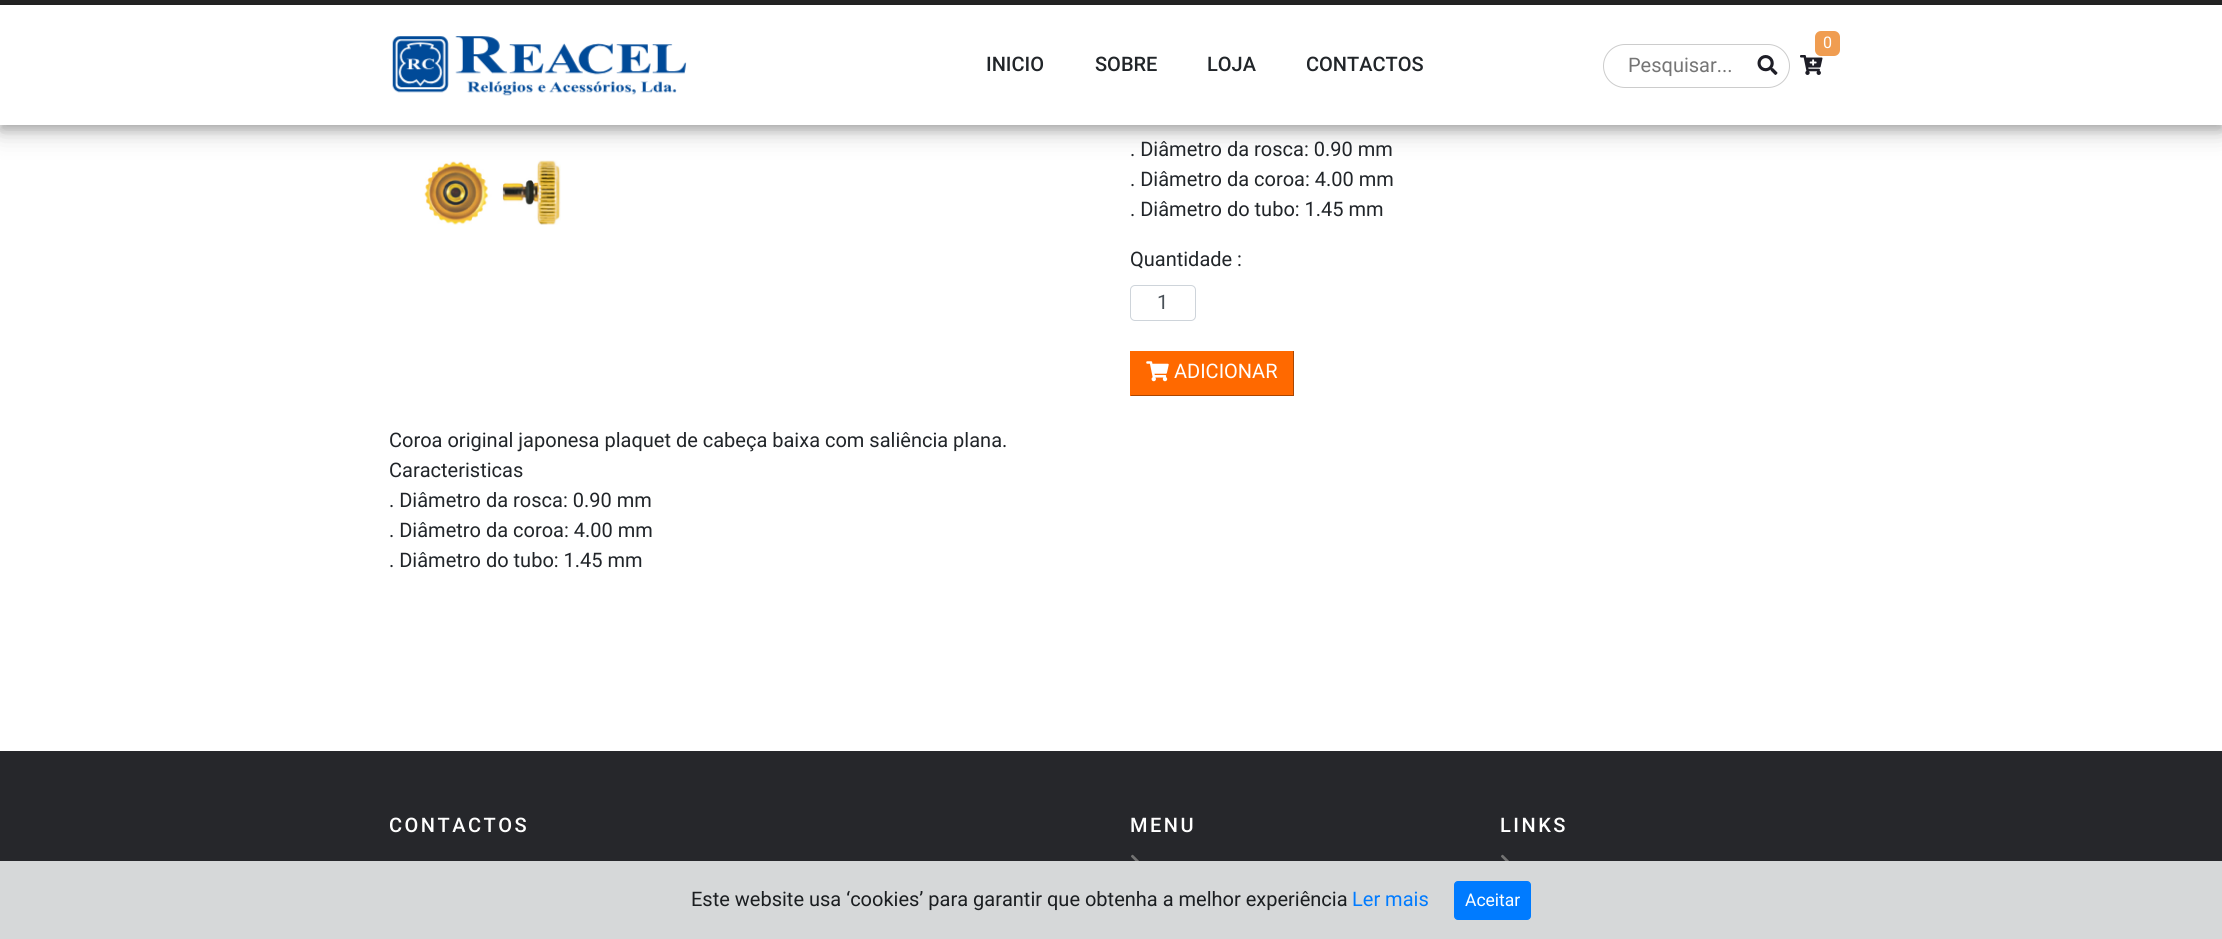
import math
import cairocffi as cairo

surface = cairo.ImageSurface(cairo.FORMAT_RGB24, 2222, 939)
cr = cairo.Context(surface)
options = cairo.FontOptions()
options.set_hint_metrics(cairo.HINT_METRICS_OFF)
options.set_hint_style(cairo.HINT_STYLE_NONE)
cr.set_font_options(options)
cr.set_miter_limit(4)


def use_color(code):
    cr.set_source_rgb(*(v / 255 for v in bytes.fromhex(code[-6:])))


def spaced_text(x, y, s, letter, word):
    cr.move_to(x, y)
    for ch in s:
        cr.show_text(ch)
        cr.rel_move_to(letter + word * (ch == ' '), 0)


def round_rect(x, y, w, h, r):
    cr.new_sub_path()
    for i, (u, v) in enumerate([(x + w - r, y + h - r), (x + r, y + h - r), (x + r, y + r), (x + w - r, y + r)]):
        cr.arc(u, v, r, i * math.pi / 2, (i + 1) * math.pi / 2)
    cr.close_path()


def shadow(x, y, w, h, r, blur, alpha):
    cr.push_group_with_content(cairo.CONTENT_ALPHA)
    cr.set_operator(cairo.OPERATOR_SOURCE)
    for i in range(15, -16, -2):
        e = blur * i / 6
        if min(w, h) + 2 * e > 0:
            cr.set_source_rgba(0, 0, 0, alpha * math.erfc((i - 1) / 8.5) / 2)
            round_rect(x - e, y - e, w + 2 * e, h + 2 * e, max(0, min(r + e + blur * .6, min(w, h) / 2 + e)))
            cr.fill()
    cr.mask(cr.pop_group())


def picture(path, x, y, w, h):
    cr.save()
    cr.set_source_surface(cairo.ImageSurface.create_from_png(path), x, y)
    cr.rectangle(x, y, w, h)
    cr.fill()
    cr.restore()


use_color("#ffffff")
cr.paint()
use_color("#242424")
cr.rectangle(0, 0, 2222, 5)
cr.fill()
picture("img4.png", 424, 160, 137, 65)
use_color("#000000")
shadow(0, 13, 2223, 120, 0, 12.5, 0.19)
shadow(0, 10, 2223, 120, 0, 5, 0.2)
use_color("#ffffff")
cr.rectangle(0, 5, 2222, 120)
cr.fill()
picture("img1.png", 392, 36, 295, 60)
cr.select_font_face("Roboto Medium")
cr.set_font_size(20)
use_color("#212529")
cr.move_to(986, 71)
cr.show_text("INICIO")
cr.move_to(1095, 71)
cr.show_text("SOBRE")
cr.move_to(1207, 71)
cr.show_text("LOJA")
cr.move_to(1306, 71)
cr.show_text("CONTACTOS")
picture("img2.png", 1800, 55, 23, 20)
use_color("#f09d51")
round_rect(1815, 31, 25, 25, 6)
cr.fill()
cr.select_font_face("Roboto")
cr.set_font_size(16)
use_color("#ffffff")
cr.move_to(1823, 48)
cr.show_text("0")
round_rect(1603.5, 44.5, 186, 43, 21.5)
use_color("#cccccc")
cr.set_line_width(1)
cr.stroke()
cr.set_font_size(20)
use_color("#757575")
cr.move_to(1628, 72)
cr.show_text("Pesquisar...")
picture("img3.png", 1757, 55, 21, 20)
use_color("#212529")
cr.move_to(1130, 156)
cr.show_text(". Diâmetro da rosca: 0.90 mm")
cr.move_to(1130, 186)
cr.show_text(". Diâmetro da coroa: 4.00 mm")
cr.move_to(1130, 216)
cr.show_text(". Diâmetro do tubo: 1.45 mm")
cr.move_to(1130, 266)
cr.show_text("Quantidade :")
round_rect(1130.5, 285.5, 65, 35, 4.5)
use_color("#ced4da")
cr.stroke()
use_color("#495057")
cr.move_to(1157, 309)
cr.show_text("1")
use_color("#ff6900")
cr.rectangle(1131, 351, 162, 44)
cr.fill()
use_color("#aa4600")
cr.rectangle(1293, 351, 1, 45)
cr.fill()
cr.rectangle(1130, 395, 164, 1)
cr.fill()
use_color("#ff6900")
cr.rectangle(1130, 351, 1, 45)
cr.fill()
picture("img5.png", 1146, 361, 23, 21)
use_color("#ffffff")
cr.move_to(1174, 378)
cr.show_text("ADICIONAR")
use_color("#212529")
cr.move_to(389, 447)
cr.show_text("Coroa original japonesa plaquet de cabeça baixa com saliência plana.")
cr.move_to(389, 477)
cr.show_text("Caracteristicas")
cr.move_to(389, 507)
cr.show_text(". Diâmetro da rosca: 0.90 mm")
cr.move_to(389, 537)
cr.show_text(". Diâmetro da coroa: 4.00 mm")
cr.move_to(389, 567)
cr.show_text(". Diâmetro do tubo: 1.45 mm")
use_color("#26272b")
cr.rectangle(0, 751, 2222, 110)
cr.fill()
cr.select_font_face("Roboto Medium")
use_color("#ffffff")
spaced_text(389, 832, "CONTACTOS", 2.5, 0)
spaced_text(1130, 832, "MENU", 2.5, 0)
picture("img6.png", 1131, 854, 8, 7)
spaced_text(1500, 832, "LINKS", 2.5, 0)
picture("img6.png", 1501, 854, 8, 7)
use_color("#d6d8d9")
cr.rectangle(0, 861, 2222, 78)
cr.fill()
cr.select_font_face("Roboto")
use_color("#1b1e21")
cr.move_to(691, 906)
cr.show_text("Este website usa ‘cookies’ para garantir que obtenha a melhor experiência")
use_color("#007bff")
cr.move_to(1352, 906)
cr.show_text("Ler mais")
round_rect(1454.5, 881.5, 76, 38, 3.5)
cr.fill_preserve()
cr.stroke()
cr.set_font_size(17.5)
use_color("#ffffff")
cr.move_to(1465, 906)
cr.show_text("Aceitar")
surface.write_to_png("result.png")
